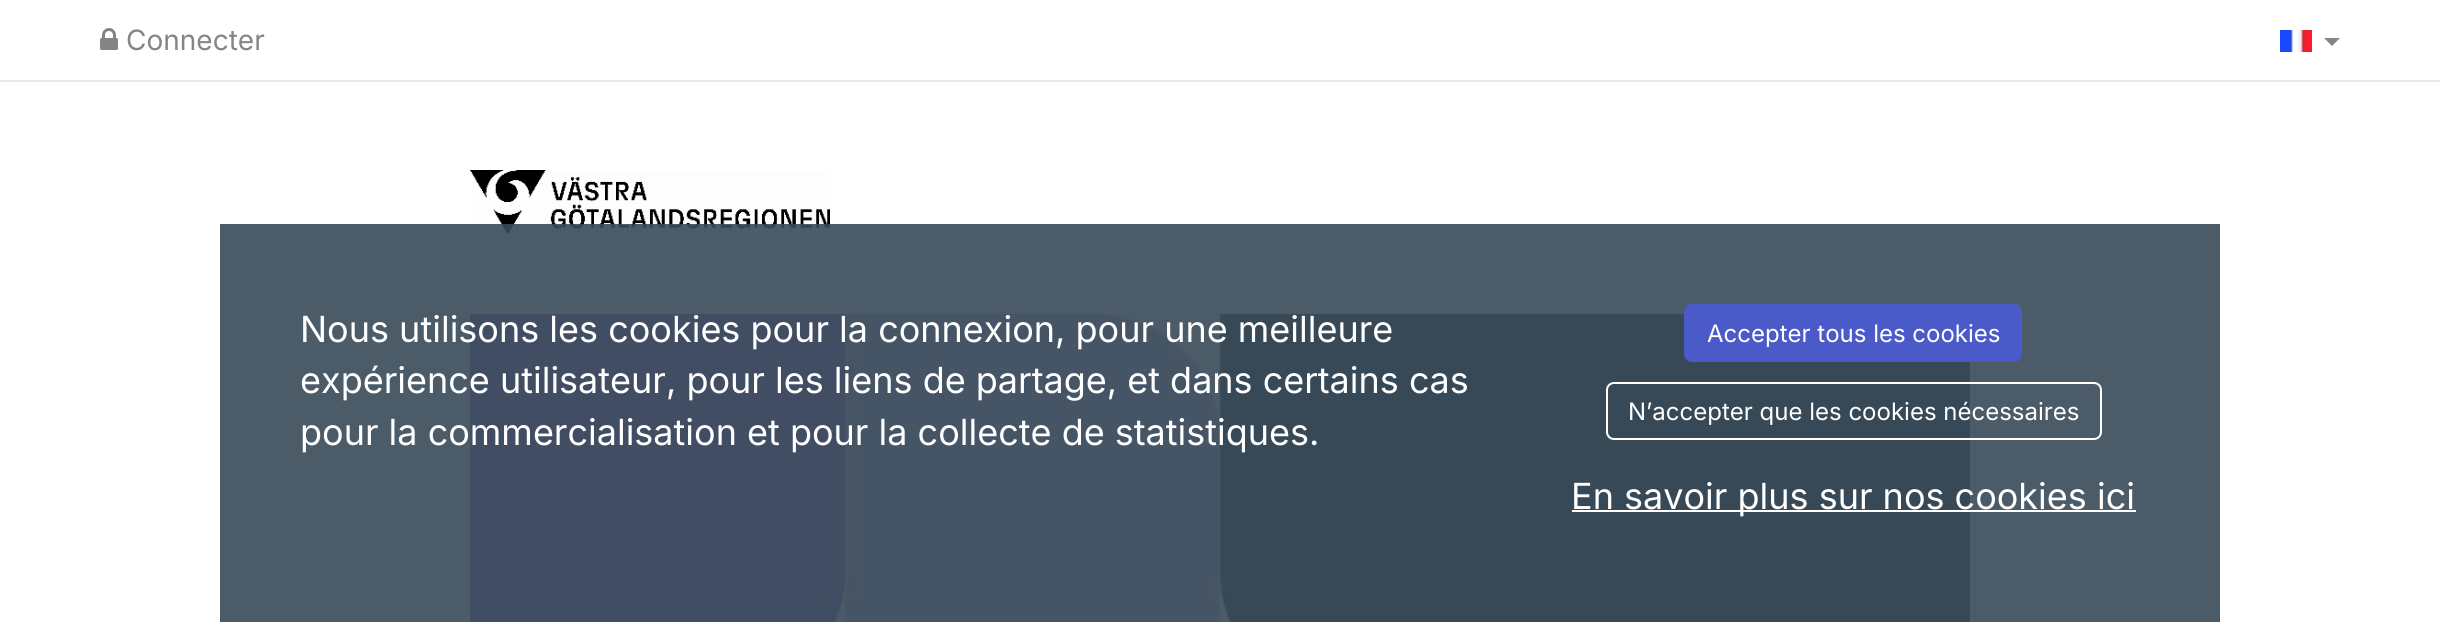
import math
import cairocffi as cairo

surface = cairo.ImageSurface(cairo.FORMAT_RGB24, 2440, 622)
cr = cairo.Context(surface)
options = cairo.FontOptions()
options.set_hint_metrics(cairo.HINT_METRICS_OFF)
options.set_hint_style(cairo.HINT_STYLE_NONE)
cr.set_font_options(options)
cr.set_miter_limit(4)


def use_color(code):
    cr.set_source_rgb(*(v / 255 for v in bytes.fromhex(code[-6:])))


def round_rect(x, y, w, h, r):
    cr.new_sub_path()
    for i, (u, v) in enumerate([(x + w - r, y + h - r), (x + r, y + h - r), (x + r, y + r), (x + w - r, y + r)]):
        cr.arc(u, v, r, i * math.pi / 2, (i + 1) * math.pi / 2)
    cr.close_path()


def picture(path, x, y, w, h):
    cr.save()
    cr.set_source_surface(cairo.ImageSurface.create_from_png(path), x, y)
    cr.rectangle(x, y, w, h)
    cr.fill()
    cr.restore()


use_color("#ffffff")
cr.paint()
use_color("#e9e9e9")
cr.rectangle(0, 80, 2440, 2)
cr.fill()
picture("img1.png", 100, 28, 18, 22)
cr.select_font_face("Inter")
cr.set_font_size(28)
use_color("#858585")
cr.move_to(126, 50)
cr.show_text("Connecter")
picture("img2.png", 2280, 30, 32, 22)
cr.new_path()
cr.move_to(2324, 38)
cr.line_to(2340, 38)
cr.line_to(2332, 46)
cr.close_path()
cr.fill()
picture("img3.png", 470, 170, 360, 64)
picture("img4.png", 470, 314, 1500, 308)
cr.set_source_rgba(0.22, 0.29, 0.341, 0.9)
cr.rectangle(220, 224, 2000, 398)
cr.fill()
cr.set_font_size(36)
use_color("#ffffff")
cr.move_to(300, 342)
cr.show_text("Nous utilisons les cookies pour la connexion, pour une meilleure")
cr.move_to(300, 393)
cr.show_text("expérience utilisateur, pour les liens de partage, et dans certains cas")
cr.move_to(300, 445)
cr.show_text("pour la commercialisation et pour la collecte de statistiques.")
use_color("#4a5bc9")
round_rect(1685, 305, 336, 56, 7)
cr.fill_preserve()
cr.stroke()
cr.set_font_size(24)
use_color("#ffffff")
cr.move_to(1707, 342)
cr.show_text("Accepter tous les cookies")
round_rect(1607, 383, 494, 56, 7)
cr.stroke()
cr.move_to(1628, 420)
cr.show_text("N’accepter que les cookies nécessaires")
cr.rectangle(1572, 510, 564, 2)
cr.fill()
cr.set_font_size(36)
cr.move_to(1571, 509)
cr.show_text("En savoir plus sur nos cookies ici")
surface.write_to_png("result.png")
